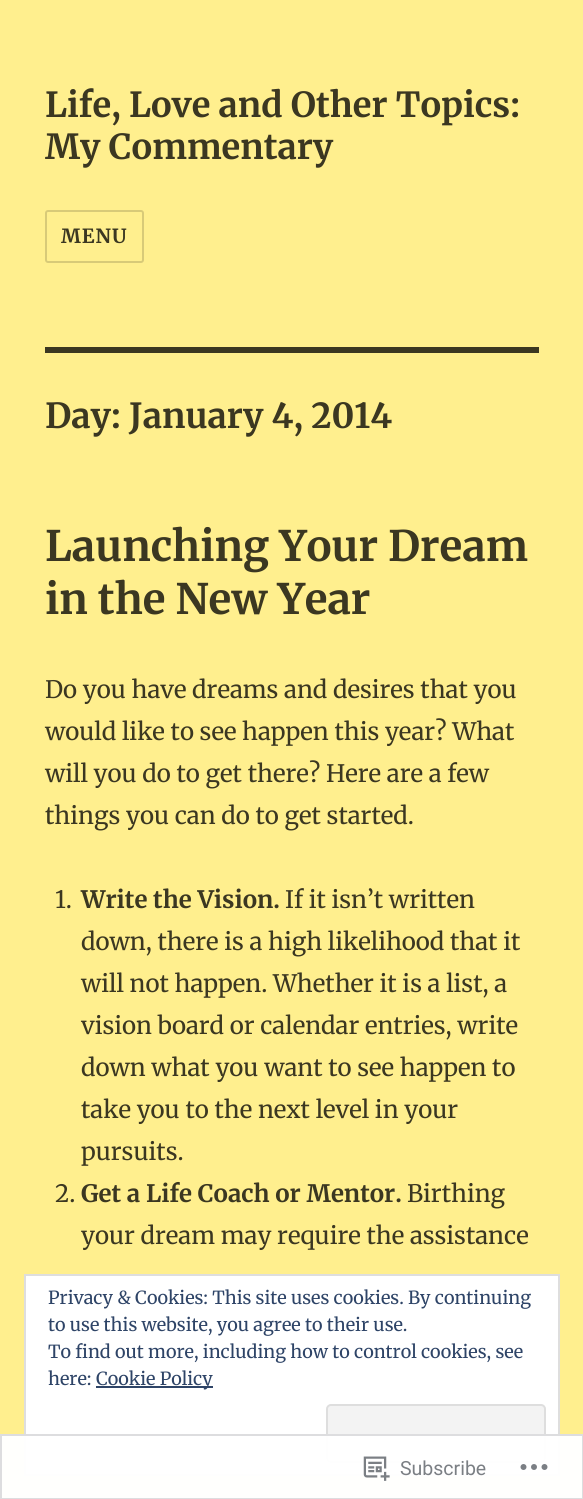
import math
import cairocffi as cairo

surface = cairo.ImageSurface(cairo.FORMAT_RGB24, 583, 1499)
cr = cairo.Context(surface)
options = cairo.FontOptions()
options.set_hint_metrics(cairo.HINT_METRICS_OFF)
options.set_hint_style(cairo.HINT_STYLE_NONE)
cr.set_font_options(options)
cr.set_miter_limit(4)


def use_color(code):
    cr.set_source_rgb(*(v / 255 for v in bytes.fromhex(code[-6:])))


def spaced_text(x, y, s, letter, word):
    cr.move_to(x, y)
    for ch in s:
        cr.show_text(ch)
        cr.rel_move_to(letter + word * (ch == ' '), 0)


def round_rect(x, y, w, h, r):
    cr.new_sub_path()
    for i, (u, v) in enumerate([(x + w - r, y + h - r), (x + r, y + h - r), (x + r, y + r), (x + w - r, y + r)]):
        cr.arc(u, v, r, i * math.pi / 2, (i + 1) * math.pi / 2)
    cr.close_path()


def picture(path, x, y, w, h):
    cr.save()
    cr.set_source_surface(cairo.ImageSurface.create_from_png(path), x, y)
    cr.rectangle(x, y, w, h)
    cr.fill()
    cr.restore()


use_color("#ffef8e")
cr.paint()
cr.select_font_face("Merriweather", cairo.FONT_SLANT_NORMAL, cairo.FONT_WEIGHT_BOLD)
cr.set_font_size(34.5)
use_color("#3b3721")
cr.move_to(45, 117)
cr.show_text("Life, Love and Other Topics:")
cr.move_to(45, 159)
cr.show_text("My Commentary")
round_rect(46, 211, 97, 51, 2)
use_color("#d8ca78")
cr.stroke()
cr.set_font_size(19.5)
use_color("#3b3721")
spaced_text(61, 243, "MENU", 1, 0)
cr.rectangle(45, 347, 494, 6)
cr.fill()
cr.set_font_size(34.5)
cr.move_to(45, 428)
cr.show_text("Day: January 4, 2014")
cr.set_font_size(42)
cr.move_to(45, 561)
cr.show_text("Launching Your Dream")
cr.move_to(45, 614)
cr.show_text("in the New Year")
cr.select_font_face("Merriweather")
cr.set_font_size(24)
cr.move_to(45, 698)
cr.show_text("Do you have dreams and desires that you")
cr.move_to(45, 740)
cr.show_text("would like to see happen this year? What")
cr.move_to(45, 782)
cr.show_text("will you do to get there? Here are a few")
cr.move_to(45, 824)
cr.show_text("things you can do to get started.")
cr.move_to(55, 908)
cr.show_text("1.")
cr.select_font_face("Merriweather", cairo.FONT_SLANT_NORMAL, cairo.FONT_WEIGHT_BOLD)
cr.move_to(81, 908)
cr.show_text("Write the Vision.")
cr.select_font_face("Merriweather")
cr.move_to(285, 908)
cr.show_text("If it isn’t written")
cr.move_to(81, 950)
cr.show_text("down, there is a high likelihood that it")
cr.move_to(81, 992)
cr.show_text("will not happen. Whether it is a list, a")
cr.move_to(81, 1034)
cr.show_text("vision board or calendar entries, write")
cr.move_to(81, 1076)
cr.show_text("down what you want to see happen to")
cr.move_to(81, 1118)
cr.show_text("take you to the next level in your")
cr.move_to(81, 1160)
cr.show_text("pursuits.")
cr.move_to(55, 1202)
cr.show_text("2.")
cr.select_font_face("Merriweather", cairo.FONT_SLANT_NORMAL, cairo.FONT_WEIGHT_BOLD)
cr.move_to(81, 1202)
cr.show_text("Get a Life Coach or Mentor.")
cr.select_font_face("Merriweather")
cr.move_to(407, 1202)
cr.show_text("Birthing")
cr.move_to(81, 1244)
cr.show_text("your dream may require the assistance")
use_color("#ffffff")
cr.rectangle(25, 1275, 534, 200)
cr.fill_preserve()
use_color("#dedede")
cr.stroke()
cr.set_font_size(18)
use_color("#2e4467")
cr.move_to(48, 1304)
cr.show_text("Privacy & Cookies: This site uses cookies. By continuing")
cr.move_to(48, 1331)
cr.show_text("to use this website, you agree to their use.")
cr.move_to(48, 1358)
cr.show_text("To find out more, including how to control cookies, see")
cr.move_to(48, 1385)
cr.show_text("here:")
cr.rectangle(96, 1386, 117, 2)
cr.fill()
cr.move_to(96, 1385)
cr.show_text("Cookie Policy")
use_color("#f3f3f3")
round_rect(327, 1405, 218, 57, 4)
cr.fill_preserve()
use_color("#dedede")
cr.stroke()
cr.set_source_rgba(1, 1, 1, 0.98)
cr.rectangle(0, 1434, 583, 65)
cr.fill()
cr.rectangle(1, 1435, 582, 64)
cr.set_source_rgba(0.863, 0.863, 0.871, 0.98)
cr.stroke()
picture("img1.png", 363, 1456, 27, 25)
cr.select_font_face("Roboto")
cr.set_font_size(19.5)
use_color("#7b7f84")
cr.move_to(400, 1475)
cr.show_text("Subscribe")
picture("img2.png", 520, 1464, 28, 6)
surface.write_to_png("result.png")
